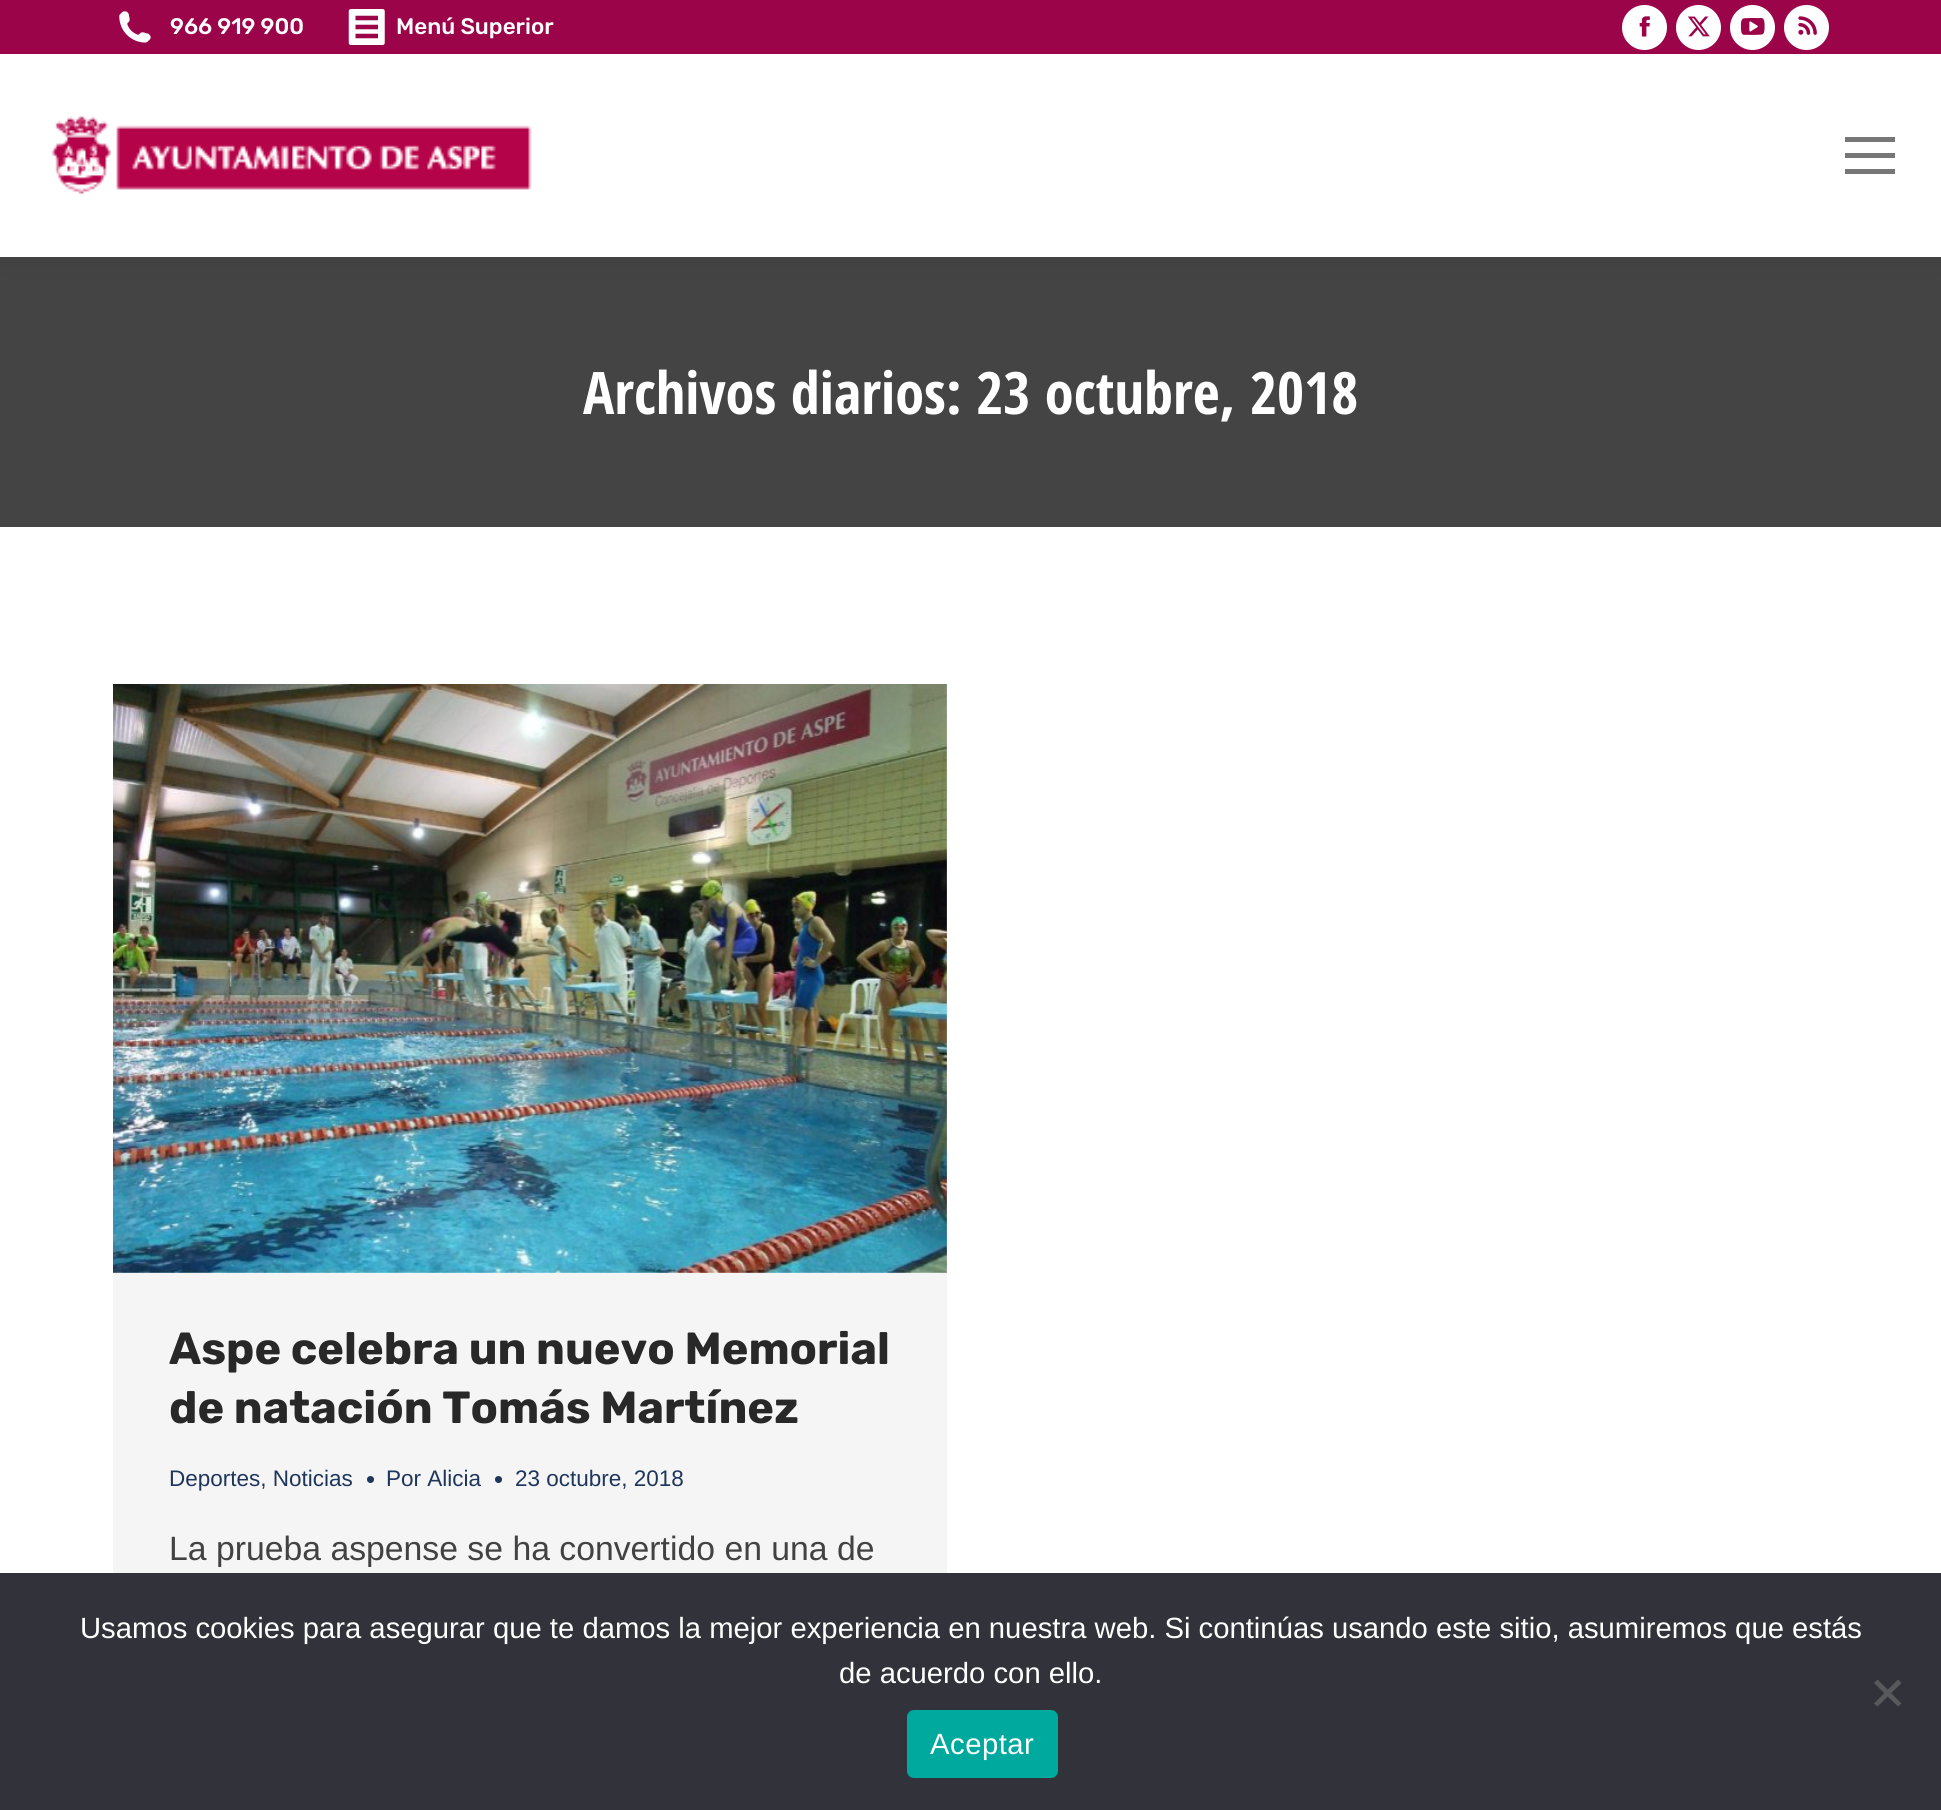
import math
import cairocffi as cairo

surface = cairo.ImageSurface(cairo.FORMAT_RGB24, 1941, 1810)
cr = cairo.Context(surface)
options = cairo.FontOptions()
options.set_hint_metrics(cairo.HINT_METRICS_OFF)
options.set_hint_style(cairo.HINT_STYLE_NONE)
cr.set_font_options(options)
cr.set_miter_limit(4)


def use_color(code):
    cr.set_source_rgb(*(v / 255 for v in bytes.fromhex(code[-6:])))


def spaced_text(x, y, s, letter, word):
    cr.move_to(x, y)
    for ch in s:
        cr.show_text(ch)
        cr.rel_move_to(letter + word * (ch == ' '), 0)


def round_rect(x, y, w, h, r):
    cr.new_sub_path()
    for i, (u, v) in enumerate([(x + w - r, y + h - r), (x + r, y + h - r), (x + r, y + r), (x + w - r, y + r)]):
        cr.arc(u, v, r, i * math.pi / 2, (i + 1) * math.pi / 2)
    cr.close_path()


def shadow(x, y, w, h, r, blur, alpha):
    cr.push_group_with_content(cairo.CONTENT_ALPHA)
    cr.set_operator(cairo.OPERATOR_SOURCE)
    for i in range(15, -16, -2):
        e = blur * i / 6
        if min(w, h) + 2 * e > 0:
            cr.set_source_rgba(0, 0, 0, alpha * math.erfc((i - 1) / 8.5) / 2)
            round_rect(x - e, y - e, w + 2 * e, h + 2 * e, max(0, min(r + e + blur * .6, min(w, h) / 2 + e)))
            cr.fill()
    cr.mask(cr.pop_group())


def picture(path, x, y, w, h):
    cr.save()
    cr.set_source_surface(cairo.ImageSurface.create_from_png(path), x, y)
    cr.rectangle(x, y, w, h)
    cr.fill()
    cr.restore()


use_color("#ffffff")
cr.paint()
use_color("#444444")
cr.rectangle(0, 257, 1941, 270)
cr.fill()
use_color("#000000")
shadow(-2, -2, 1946, 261, 0, 17, 0.07)
use_color("#ffffff")
cr.rectangle(0, 54, 1941, 203)
cr.fill()
use_color("#9b0448")
cr.rectangle(0, 0, 1941, 54)
cr.fill()
picture("img1.png", 119, 11, 32, 32)
cr.select_font_face("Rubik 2 Light")
cr.set_font_size(22.5)
use_color("#ffffff")
cr.move_to(170, 34)
cr.show_text("966 919 900")
picture("img2.png", 348, 9, 37, 36)
cr.move_to(396, 34)
cr.show_text("Menú Superior")
cr.new_path()
cr.arc(1644.5, 27.5, 22.5, 0, 2 * math.pi)
cr.fill()
picture("img3.png", 1639, 16, 11, 21)
cr.arc(1698.5, 27.5, 22.5, 0, 2 * math.pi)
cr.fill()
picture("img4.png", 1688, 16, 22, 21)
cr.arc(1752.5, 27.5, 22.5, 0, 2 * math.pi)
cr.fill()
picture("img5.png", 1740, 18, 25, 17)
cr.arc(1806.5, 27.5, 22.5, 0, 2 * math.pi)
cr.fill()
picture("img6.png", 1798, 16, 19, 19)
picture("img7.png", 51, 116, 481, 79)
use_color("#777777")
cr.rectangle(1845, 137, 50, 5)
cr.fill()
cr.rectangle(1845, 153, 50, 5)
cr.fill()
cr.rectangle(1845, 169, 50, 5)
cr.fill()
cr.select_font_face("Open Sans Condensed", cairo.FONT_SLANT_NORMAL, cairo.FONT_WEIGHT_BOLD)
cr.set_font_size(58.5)
use_color("#ffffff")
cr.move_to(583, 414)
cr.show_text("Archivos diarios: 23 octubre, 2018")
use_color("#f5f5f5")
cr.rectangle(113, 684, 834, 889)
cr.fill()
picture("img8.png", 113, 684, 834, 589)
cr.select_font_face("Rubik Light")
cr.set_font_size(45)
use_color("#282828")
cr.move_to(169, 1364)
cr.show_text("Aspe celebra un nuevo Memorial")
cr.move_to(169, 1423)
cr.show_text("de natación Tomás Martínez")
cr.select_font_face("Liberation Sans")
cr.set_font_size(22.5)
use_color("#1f365c")
cr.move_to(169, 1486)
cr.show_text("Deportes, Noticias")
cr.new_path()
cr.arc(370.5, 1479.5, 3.5, 0, 2 * math.pi)
cr.fill()
cr.move_to(386, 1486)
cr.show_text("Por Alicia")
cr.new_path()
cr.arc(498.5, 1479.5, 3.5, 0, 2 * math.pi)
cr.fill()
cr.move_to(515, 1486)
cr.show_text("23 octubre, 2018")
cr.set_font_size(33.75)
use_color("#424242")
cr.move_to(169, 1560)
cr.show_text("La prueba aspense se ha convertido en una de")
use_color("#32323a")
cr.rectangle(0, 1573, 1941, 237)
cr.fill()
cr.set_font_size(29.25)
use_color("#ffffff")
cr.move_to(80, 1638)
cr.show_text("Usamos cookies para asegurar que te damos la mejor experiencia en nuestra web. Si continúas usando este sitio, asumiremos que estás")
cr.move_to(839, 1683)
cr.show_text("de acuerdo con ello.")
use_color("#59595d")
cr.new_path()
cr.move_to(1898, 1679.5)
cr.line_to(1901.5, 1683)
cr.line_to(1877.5, 1706.5)
cr.line_to(1874, 1703.5)
cr.close_path()
cr.fill()
cr.new_path()
cr.move_to(1874, 1683)
cr.line_to(1877.5, 1679.5)
cr.line_to(1901.5, 1703.5)
cr.line_to(1898, 1706.5)
cr.close_path()
cr.fill()
use_color("#00a99d")
round_rect(907, 1710, 151, 68, 7)
cr.fill()
use_color("#ffffff")
spaced_text(930, 1754, "Aceptar", 0.5, 0)
surface.write_to_png("result.png")
